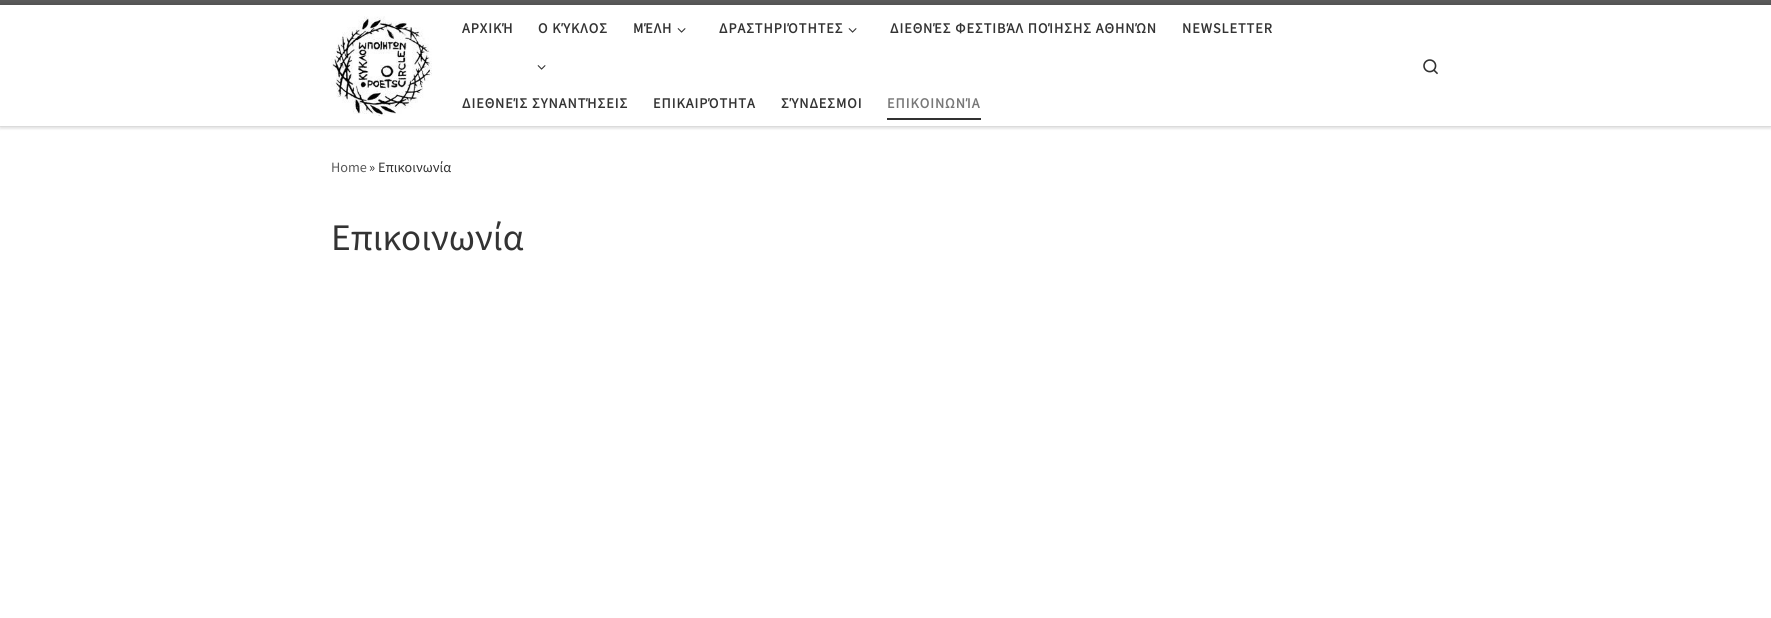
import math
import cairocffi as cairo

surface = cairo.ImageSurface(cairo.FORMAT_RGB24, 1771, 618)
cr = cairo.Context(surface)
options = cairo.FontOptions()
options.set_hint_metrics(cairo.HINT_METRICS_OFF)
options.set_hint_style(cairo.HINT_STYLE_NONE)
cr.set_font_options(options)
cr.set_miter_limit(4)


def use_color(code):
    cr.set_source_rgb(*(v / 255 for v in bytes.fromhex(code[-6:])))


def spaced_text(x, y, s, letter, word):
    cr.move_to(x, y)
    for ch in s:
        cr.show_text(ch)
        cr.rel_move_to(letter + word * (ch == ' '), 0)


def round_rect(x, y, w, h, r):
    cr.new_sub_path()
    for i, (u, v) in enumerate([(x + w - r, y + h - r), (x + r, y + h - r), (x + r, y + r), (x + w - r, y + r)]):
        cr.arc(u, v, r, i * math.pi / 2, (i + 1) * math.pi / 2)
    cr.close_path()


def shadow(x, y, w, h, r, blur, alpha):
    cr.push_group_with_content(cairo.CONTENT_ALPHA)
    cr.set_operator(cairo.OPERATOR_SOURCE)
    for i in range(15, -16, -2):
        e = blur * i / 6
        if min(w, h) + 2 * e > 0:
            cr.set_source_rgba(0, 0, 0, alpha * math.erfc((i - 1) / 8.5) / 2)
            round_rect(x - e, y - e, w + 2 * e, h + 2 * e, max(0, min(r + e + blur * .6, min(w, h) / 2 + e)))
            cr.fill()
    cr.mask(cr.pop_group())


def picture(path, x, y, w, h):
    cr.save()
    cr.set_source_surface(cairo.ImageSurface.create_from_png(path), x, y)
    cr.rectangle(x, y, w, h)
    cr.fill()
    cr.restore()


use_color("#ffffff")
cr.paint()
cr.save()
cr.rectangle(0, 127, 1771, 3)
cr.clip()
use_color("#666666")
shadow(0, 2, 1771, 127, 0, 1, 0.08)
cr.restore()
use_color("#5a5a5a")
cr.rectangle(0, 0, 1771, 5)
cr.fill()
use_color("#efefef")
cr.rectangle(0, 126, 1771, 1)
cr.fill()
cr.save()
cr.set_fill_rule(cairo.FILL_RULE_EVEN_ODD)
cr.new_path()
cr.move_to(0, 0)
cr.line_to(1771, 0)
cr.line_to(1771, 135)
cr.line_to(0, 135)
cr.close_path()
cr.move_to(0, 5)
cr.line_to(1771, 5)
cr.line_to(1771, 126)
cr.line_to(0, 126)
cr.close_path()
cr.clip()
use_color("#000000")
shadow(0, 5, 1771, 121, 0, 2.5, 0.2)
cr.restore()
picture("img1.png", 331, 16, 101, 100)
cr.select_font_face("Source Sans Pro", cairo.FONT_SLANT_NORMAL, cairo.FONT_WEIGHT_BOLD)
cr.set_font_size(14.25)
use_color("#333333")
spaced_text(462, 33, "ΑΡΧΙΚΉ", 1, 0)
spaced_text(538, 33, "Ο ΚΎΚΛΟΣ", 1, 0)
picture("img2.png", 537, 65, 9, 5)
spaced_text(633, 33, "ΜΈΛΗ", 1, 0)
picture("img2.png", 677, 28, 9, 5)
spaced_text(719, 33, "ΔΡΑΣΤΗΡΙΌΤΗΤΕΣ", 1, 0)
picture("img2.png", 848, 28, 9, 5)
spaced_text(890, 33, "ΔΙΕΘΝΈΣ ΦΕΣΤΙΒΆΛ ΠΟΊΗΣΗΣ ΑΘΗΝΏΝ", 1, 0)
spaced_text(1182, 33, "NEWSLETTER", 1, 0)
spaced_text(462, 108, "ΔΙΕΘΝΕΊΣ ΣΥΝΑΝΤΉΣΕΙΣ", 1, 0)
spaced_text(653, 108, "ΕΠΙΚΑΙΡΌΤΗΤΑ", 1, 0)
spaced_text(781, 108, "ΣΎΝΔΕΣΜΟΙ", 1, 0)
use_color("#777777")
spaced_text(887, 108, "ΕΠΙΚΟΙΝΩΝΊΑ", 1, 0)
use_color("#313131")
cr.rectangle(887, 118, 94, 2)
cr.fill()
picture("img3.png", 1423, 59, 15, 16)
cr.select_font_face("Source Sans Pro")
use_color("#5a5a5a")
cr.move_to(331, 172)
cr.show_text("Home")
use_color("#333333")
cr.move_to(369, 172)
cr.show_text("» Επικοινωνία")
cr.set_font_size(37.5)
cr.move_to(331, 250)
cr.show_text("Επικοινωνία")
surface.write_to_png("result.png")
